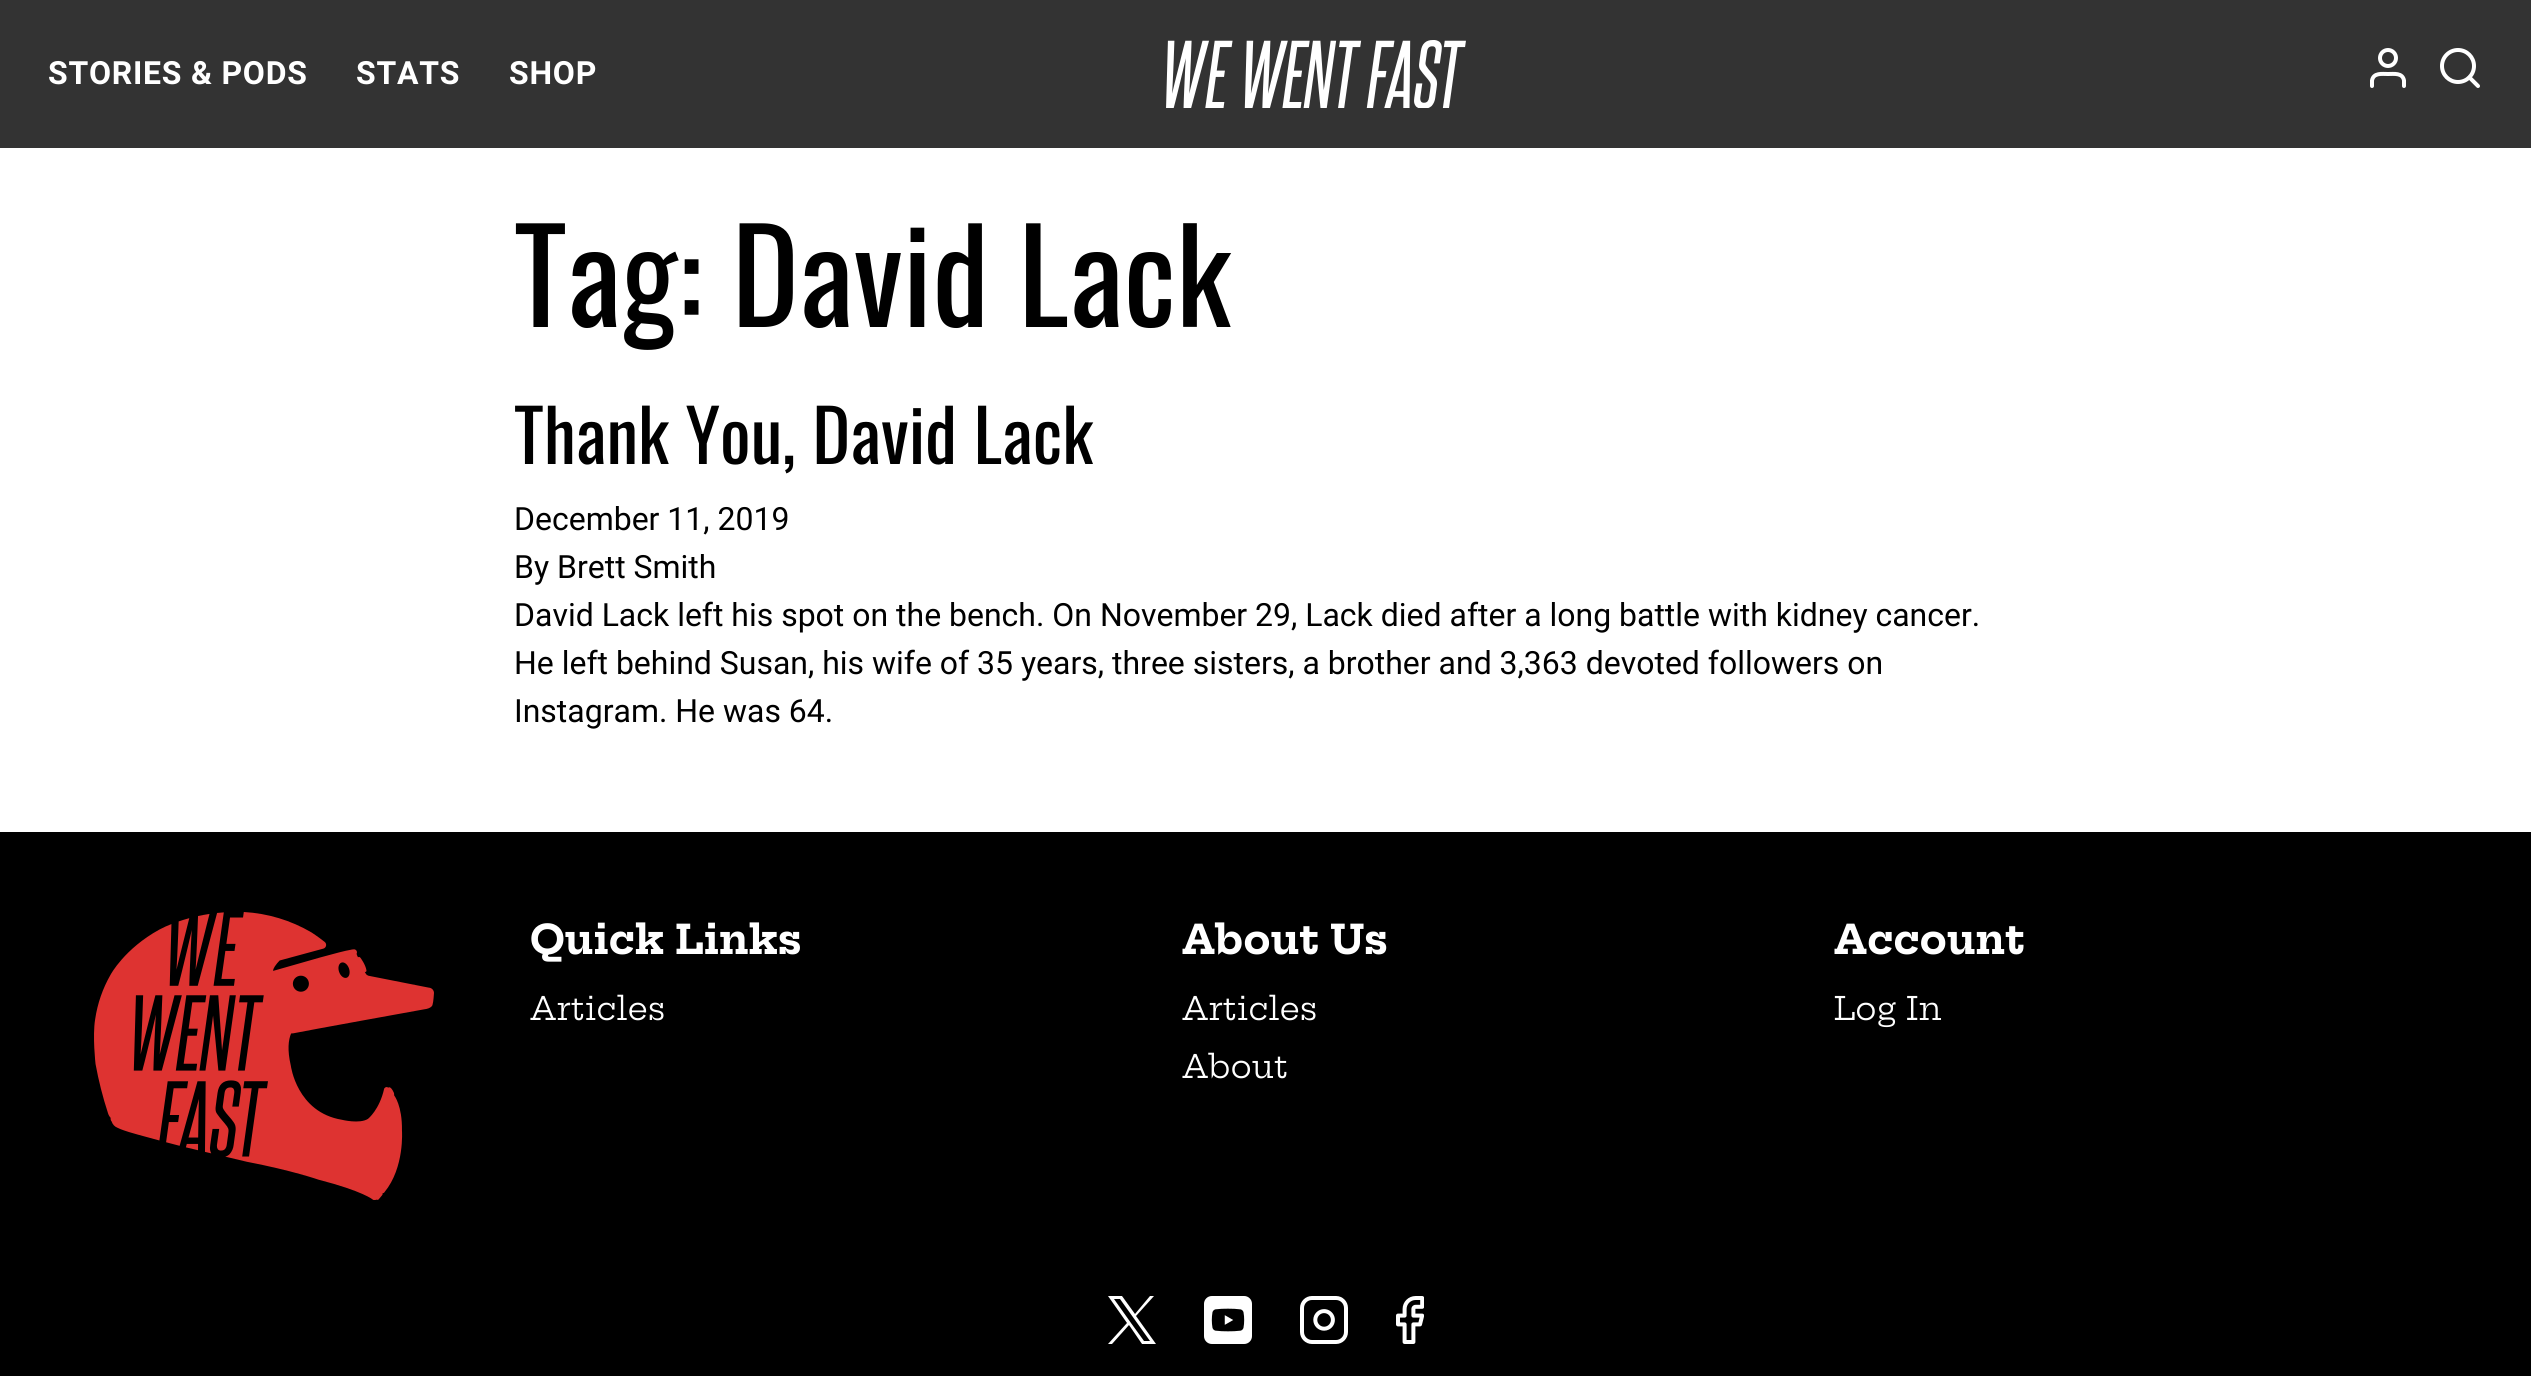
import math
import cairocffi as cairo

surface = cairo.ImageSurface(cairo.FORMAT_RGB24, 2531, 1376)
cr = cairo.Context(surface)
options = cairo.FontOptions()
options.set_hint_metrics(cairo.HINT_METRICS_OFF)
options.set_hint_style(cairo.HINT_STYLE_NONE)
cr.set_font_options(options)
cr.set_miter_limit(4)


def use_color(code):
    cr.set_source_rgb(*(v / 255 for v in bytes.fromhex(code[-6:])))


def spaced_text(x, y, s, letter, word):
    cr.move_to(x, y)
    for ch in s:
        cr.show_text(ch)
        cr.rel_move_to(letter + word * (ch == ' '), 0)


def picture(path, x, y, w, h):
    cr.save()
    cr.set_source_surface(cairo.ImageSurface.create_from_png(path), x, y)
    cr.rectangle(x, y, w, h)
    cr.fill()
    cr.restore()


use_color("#ffffff")
cr.paint()
use_color("#333333")
cr.rectangle(0, 0, 2531, 148)
cr.fill()
cr.select_font_face("Roboto", cairo.FONT_SLANT_NORMAL, cairo.FONT_WEIGHT_BOLD)
cr.set_font_size(32)
use_color("#ffffff")
spaced_text(48, 84, "STORIES & PODS", 0.75, 0)
spaced_text(356, 84, "STATS", 0.75, 0)
spaced_text(509, 84, "SHOP", 0.75, 0)
picture("img1.png", 1166, 40, 300, 68)
cr.new_path()
cr.move_to(2404, 86)
cr.line_to(2404, 80.5)
cr.curve_to(2402.5, 72.5, 2394, 74, 2388, 74)
cr.curve_to(2382, 74, 2373.5, 72.5, 2372, 80.5)
cr.line_to(2372, 86)
cr.set_line_width(4)
cr.set_line_cap(cairo.LINE_CAP_ROUND)
cr.set_line_join(cairo.LINE_JOIN_ROUND)
cr.stroke()
cr.arc(2388, 58, 8, 0, 2 * math.pi)
cr.set_line_cap(cairo.LINE_CAP_BUTT)
cr.set_line_join(cairo.LINE_JOIN_MITER)
cr.stroke()
cr.arc(2458, 66, 16, 0, 2 * math.pi)
cr.stroke()
cr.new_path()
cr.move_to(2478, 86)
cr.line_to(2469.5, 77.5)
cr.set_line_cap(cairo.LINE_CAP_ROUND)
cr.set_line_join(cairo.LINE_JOIN_ROUND)
cr.stroke()
cr.select_font_face("Oswald")
cr.set_font_size(128)
use_color("#000000")
cr.move_to(514, 327)
cr.show_text("Tag: David Lack")
cr.set_font_size(72)
cr.move_to(514, 464)
cr.show_text("Thank You, David Lack")
cr.select_font_face("Roboto")
cr.set_font_size(32)
cr.move_to(514, 530)
cr.show_text("December 11, 2019")
cr.move_to(514, 578)
cr.show_text("By Brett Smith")
cr.move_to(514, 626)
cr.show_text("David Lack left his spot on the bench. On November 29, Lack died after a long battle with kidney cancer.")
cr.move_to(514, 674)
cr.show_text("He left behind Susan, his wife of 35 years, three sisters, a brother and 3,363 devoted followers on")
cr.move_to(514, 722)
cr.show_text("Instagram. He was 64.")
cr.rectangle(0, 832, 2531, 544)
cr.fill()
picture("img2.png", 94, 912, 340, 288)
cr.select_font_face("Hepta Slab", cairo.FONT_SLANT_NORMAL, cairo.FONT_WEIGHT_BOLD)
cr.set_font_size(40)
use_color("#ffffff")
cr.move_to(530, 954)
cr.show_text("Quick Links")
cr.select_font_face("Hepta Slab")
cr.set_font_size(32)
cr.move_to(530, 1020)
cr.show_text("Articles")
cr.select_font_face("Hepta Slab", cairo.FONT_SLANT_NORMAL, cairo.FONT_WEIGHT_BOLD)
cr.set_font_size(40)
cr.move_to(1182, 954)
cr.show_text("About Us")
cr.select_font_face("Hepta Slab")
cr.set_font_size(32)
cr.move_to(1182, 1020)
cr.show_text("Articles")
cr.move_to(1182, 1078)
cr.show_text("About")
cr.select_font_face("Hepta Slab", cairo.FONT_SLANT_NORMAL, cairo.FONT_WEIGHT_BOLD)
cr.set_font_size(40)
cr.move_to(1834, 954)
cr.show_text("Account")
cr.select_font_face("Hepta Slab")
cr.set_font_size(32)
cr.move_to(1834, 1020)
cr.show_text("Log In")
cr.new_path()
cr.move_to(1131, 1323)
cr.line_to(1114, 1299)
cr.line_to(1120, 1299)
cr.line_to(1150, 1341)
cr.line_to(1144, 1341)
cr.close_path()
cr.move_to(1150, 1296)
cr.line_to(1135, 1314)
cr.line_to(1122, 1296)
cr.line_to(1108, 1296)
cr.line_to(1127, 1323)
cr.line_to(1108, 1344)
cr.line_to(1112, 1344)
cr.line_to(1129, 1325)
cr.line_to(1142, 1344)
cr.line_to(1156, 1344)
cr.line_to(1136, 1316)
cr.line_to(1154, 1296)
cr.close_path()
cr.fill()
picture("img3.png", 1204, 1296, 48, 48)
picture("img4.png", 1300, 1296, 48, 48)
picture("img5.png", 1396, 1296, 28, 48)
surface.write_to_png("result.png")
